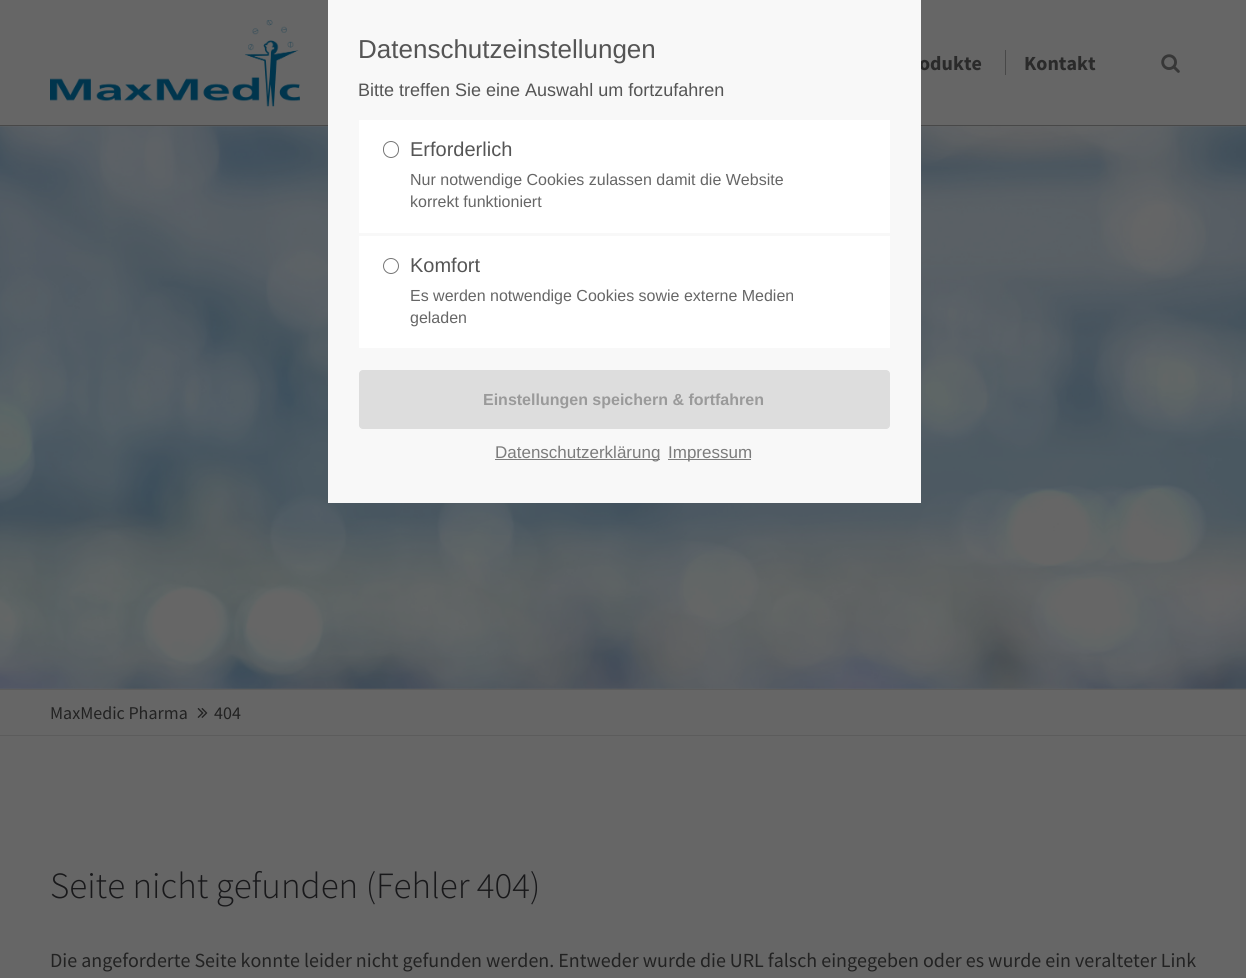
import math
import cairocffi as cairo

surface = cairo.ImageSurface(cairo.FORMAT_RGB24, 1246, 978)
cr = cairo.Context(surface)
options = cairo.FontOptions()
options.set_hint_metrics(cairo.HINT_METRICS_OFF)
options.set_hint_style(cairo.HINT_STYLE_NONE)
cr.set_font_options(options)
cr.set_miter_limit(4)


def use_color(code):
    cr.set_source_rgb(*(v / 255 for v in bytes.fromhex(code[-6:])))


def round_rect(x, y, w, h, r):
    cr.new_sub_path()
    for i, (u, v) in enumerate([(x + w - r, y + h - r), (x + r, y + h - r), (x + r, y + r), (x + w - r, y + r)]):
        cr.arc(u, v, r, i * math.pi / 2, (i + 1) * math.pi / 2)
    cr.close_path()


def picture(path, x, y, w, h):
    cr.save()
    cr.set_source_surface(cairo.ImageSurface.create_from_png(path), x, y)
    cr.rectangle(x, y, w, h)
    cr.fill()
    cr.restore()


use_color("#666666")
cr.paint()
use_color("#484848")
cr.rectangle(0, 125, 1246, 1)
cr.fill()
cr.select_font_face("Source Sans Pro", cairo.FONT_SLANT_NORMAL, cairo.FONT_WEIGHT_BOLD)
cr.set_font_size(20)
use_color("#2a2a2a")
cr.move_to(919, 70)
cr.show_text("odukte")
picture("img3.png", 0, 126, 1246, 563)
use_color("#f8f8f8")
cr.rectangle(328, 0, 593, 503)
cr.fill()
cr.select_font_face("Liberation Sans")
cr.set_font_size(26)
use_color("#555555")
cr.move_to(358, 58)
cr.show_text("Datenschutzeinstellungen")
cr.set_font_size(18)
cr.move_to(358, 96)
cr.show_text("Bitte treffen Sie eine Auswahl um fortzufahren")
use_color("#ffffff")
cr.rectangle(359, 120, 531, 113)
cr.fill()
round_rect(383.5, 141.5, 15, 16, 7.5)
use_color("#767676")
cr.set_line_width(1)
cr.stroke()
cr.set_font_size(20)
use_color("#555555")
cr.move_to(410, 156)
cr.show_text("Erforderlich")
cr.set_font_size(16)
use_color("#666666")
cr.move_to(410, 185)
cr.show_text("Nur notwendige Cookies zulassen damit die Website")
cr.move_to(410, 207)
cr.show_text("korrekt funktioniert")
use_color("#ffffff")
cr.rectangle(359, 236, 531, 112)
cr.fill()
cr.arc(391, 266, 7.5, 0, 2 * math.pi)
use_color("#767676")
cr.stroke()
cr.set_font_size(20)
use_color("#555555")
cr.move_to(410, 272)
cr.show_text("Komfort")
cr.set_font_size(16)
use_color("#666666")
cr.move_to(410, 301)
cr.show_text("Es werden notwendige Cookies sowie externe Medien")
cr.move_to(410, 323)
cr.show_text("geladen")
use_color("#dddddd")
round_rect(359.5, 370.5, 530, 58, 3.5)
cr.fill_preserve()
cr.stroke()
cr.select_font_face("Liberation Sans", cairo.FONT_SLANT_NORMAL, cairo.FONT_WEIGHT_BOLD)
use_color("#9a9a9a")
cr.move_to(483, 405)
cr.show_text("Einstellungen speichern & fortfahren")
use_color("#7c7c7c")
cr.rectangle(495, 459, 165, 1)
cr.fill()
cr.select_font_face("Liberation Sans")
cr.set_font_size(17)
cr.move_to(495, 458)
cr.show_text("Datenschutzerklärung")
cr.rectangle(668, 459, 83, 1)
cr.fill()
cr.move_to(668, 458)
cr.show_text("Impressum")
picture("img1.png", 50, 20, 250, 87)
use_color("#484848")
cr.rectangle(1005, 50, 1, 25)
cr.fill()
cr.select_font_face("Source Sans Pro", cairo.FONT_SLANT_NORMAL, cairo.FONT_WEIGHT_BOLD)
cr.set_font_size(20)
use_color("#2a2a2a")
cr.move_to(1024, 70)
cr.show_text("Kontakt")
picture("img2.png", 1161, 54, 19, 19)
use_color("#5c5c5c")
cr.rectangle(0, 689, 1246, 1)
cr.fill()
cr.rectangle(0, 735, 1246, 1)
cr.fill()
cr.select_font_face("Source Sans Pro")
cr.set_font_size(18)
use_color("#222222")
cr.move_to(50, 719)
cr.show_text("MaxMedic Pharma")
picture("img4.png", 197, 708, 11, 10)
cr.move_to(214, 719)
cr.show_text("404")
cr.select_font_face("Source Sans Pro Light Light")
cr.set_font_size(37)
use_color("#18181a")
cr.move_to(50, 898)
cr.show_text("Seite nicht gefunden (Fehler 404)")
cr.select_font_face("Source Sans Pro")
cr.set_font_size(20)
use_color("#222222")
cr.move_to(50, 967)
cr.show_text("Die angeforderte Seite konnte leider nicht gefunden werden. Entweder wurde die URL falsch eingegeben oder es wurde ein veralteter Link")
surface.write_to_png("result.png")
